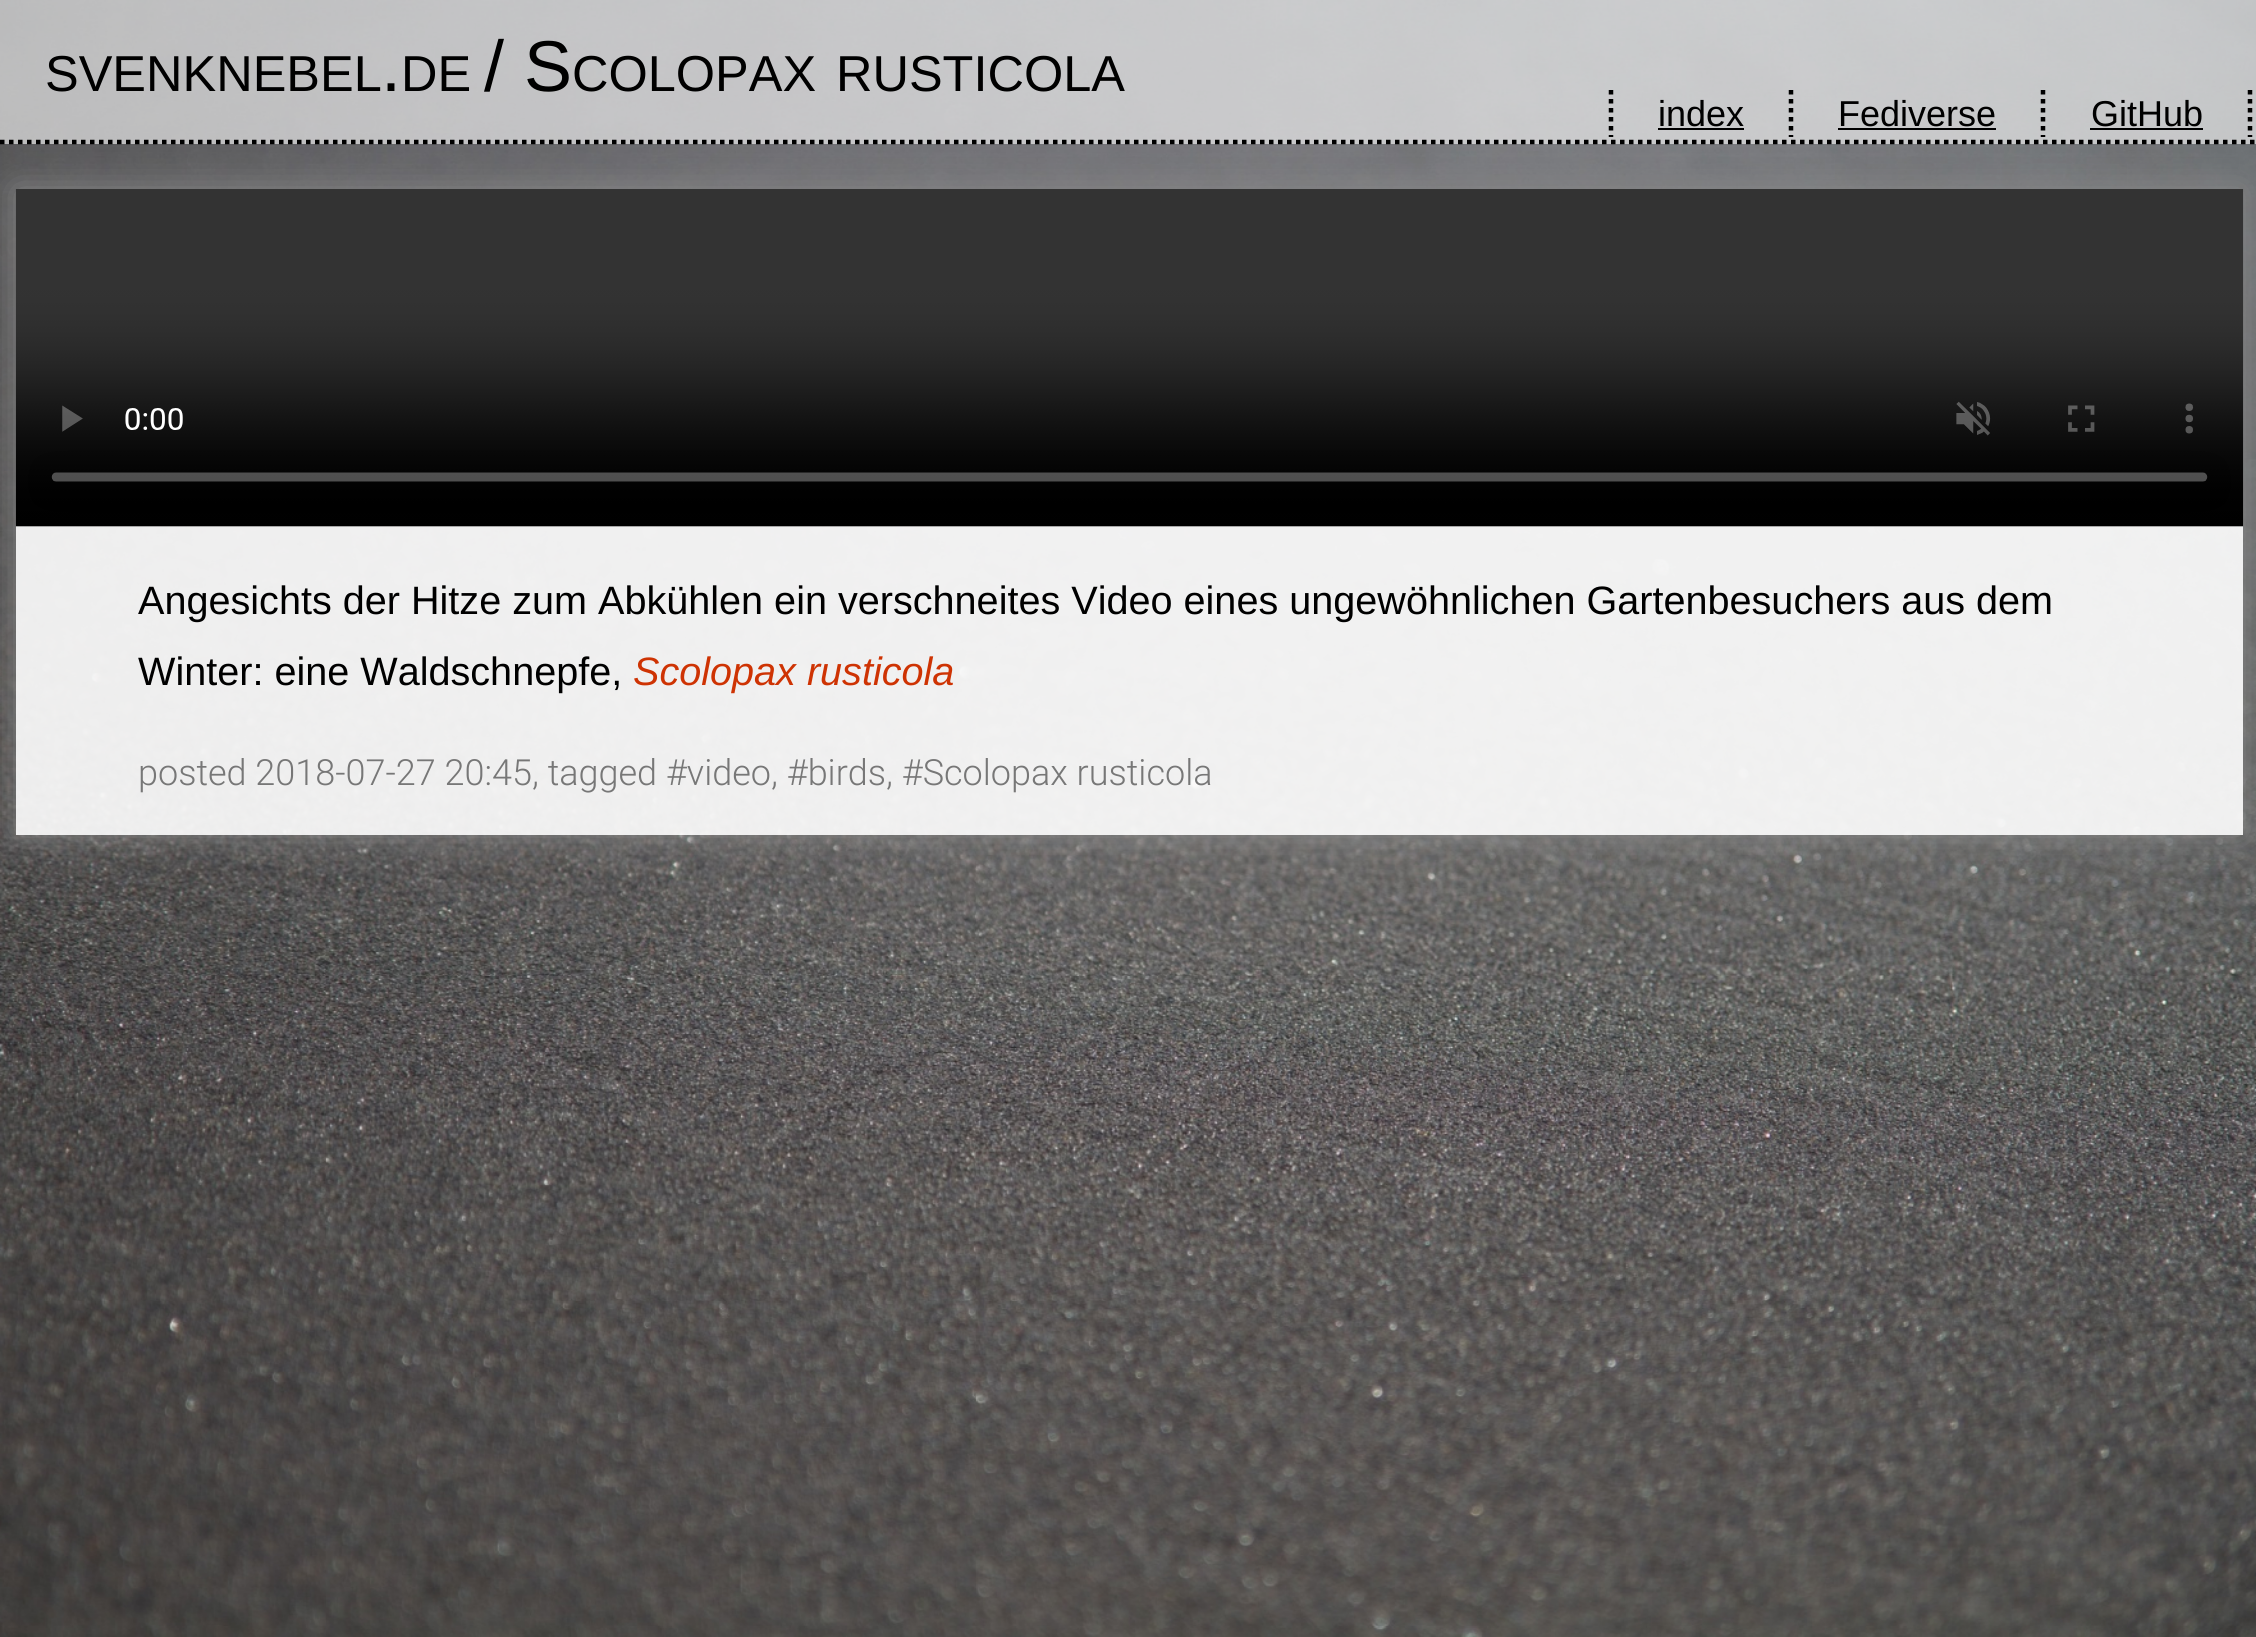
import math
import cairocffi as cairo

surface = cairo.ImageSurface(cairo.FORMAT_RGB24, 2256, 1637)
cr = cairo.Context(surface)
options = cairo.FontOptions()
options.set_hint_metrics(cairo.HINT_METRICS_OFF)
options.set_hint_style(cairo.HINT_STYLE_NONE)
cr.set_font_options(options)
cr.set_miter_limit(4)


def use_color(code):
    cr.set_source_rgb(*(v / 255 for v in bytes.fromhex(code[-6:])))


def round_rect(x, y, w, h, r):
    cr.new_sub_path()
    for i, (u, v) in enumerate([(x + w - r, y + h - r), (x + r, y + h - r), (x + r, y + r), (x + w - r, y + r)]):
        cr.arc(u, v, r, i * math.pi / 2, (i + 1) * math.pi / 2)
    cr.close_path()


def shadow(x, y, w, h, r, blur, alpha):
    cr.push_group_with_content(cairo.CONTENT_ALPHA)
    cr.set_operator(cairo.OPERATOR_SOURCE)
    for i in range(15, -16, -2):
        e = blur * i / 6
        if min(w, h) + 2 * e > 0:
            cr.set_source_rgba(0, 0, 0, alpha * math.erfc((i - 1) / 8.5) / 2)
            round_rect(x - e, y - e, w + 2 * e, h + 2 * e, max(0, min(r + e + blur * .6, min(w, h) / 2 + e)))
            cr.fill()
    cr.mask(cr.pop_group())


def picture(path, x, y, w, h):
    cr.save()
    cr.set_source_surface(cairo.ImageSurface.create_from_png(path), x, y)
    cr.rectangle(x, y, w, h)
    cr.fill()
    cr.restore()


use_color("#ffffff")
cr.paint()
picture("img1.png", 0, 0, 2256, 1637)
cr.set_source_rgba(1, 1, 1, 0.6)
cr.rectangle(0, 0, 2256, 144)
cr.fill()
cr.new_path()
cr.move_to(0, 142)
cr.line_to(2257, 142)
use_color("#000000")
cr.set_line_width(4.5)
cr.set_dash([4.5, 4.5])
cr.stroke()
cr.select_font_face("Liberation Sans")
cr.set_font_size(50.5)
cr.move_to(45, 91)
cr.show_text("SVENKNEBEL")
cr.set_font_size(72)
cr.move_to(381, 91)
cr.show_text(".")
cr.set_font_size(50.5)
cr.move_to(401, 91)
cr.show_text("DE")
cr.set_font_size(72)
cr.move_to(484, 91)
cr.show_text("/ S")
cr.set_font_size(50.5)
cr.move_to(572, 91)
cr.show_text("COLOPAX")
cr.move_to(836, 91)
cr.show_text("RUSTICOLA")
cr.set_font_size(36)
cr.move_to(1658, 126)
cr.show_text("index")
cr.new_path()
cr.move_to(1791, 90)
cr.line_to(1791, 137)
cr.stroke()
cr.new_path()
cr.move_to(1611, 90)
cr.line_to(1611, 137)
cr.stroke()
cr.rectangle(1658, 128, 86, 2)
cr.fill()
cr.move_to(1838, 126)
cr.show_text("Fediverse")
cr.new_path()
cr.move_to(2043, 90)
cr.line_to(2043, 137)
cr.stroke()
cr.rectangle(1838, 128, 158, 2)
cr.fill()
cr.move_to(2091, 126)
cr.show_text("GitHub")
cr.new_path()
cr.move_to(2250, 90)
cr.line_to(2250, 137)
cr.stroke()
cr.rectangle(2090, 128, 113, 2)
cr.fill()
cr.save()
cr.set_fill_rule(cairo.FILL_RULE_EVEN_ODD)
cr.new_path()
cr.move_to(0, 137)
cr.line_to(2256, 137)
cr.line_to(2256, 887)
cr.line_to(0, 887)
cr.close_path()
cr.move_to(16, 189)
cr.line_to(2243, 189)
cr.line_to(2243, 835)
cr.line_to(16, 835)
cr.close_path()
cr.clip()
use_color("#888888")
shadow(16, 189, 2227, 646, 0, 17, 1)
cr.restore()
cr.set_source_rgba(1, 1, 1, 0.9)
cr.rectangle(16, 526, 2227, 309)
cr.fill()
picture("img2.png", 15, 189, 2229, 338)
cr.set_font_size(39.6)
use_color("#000000")
cr.move_to(138, 614)
cr.show_text("Angesichts der Hitze zum Abkühlen ein verschneites Video eines ungewöhnlichen Gartenbesuchers aus dem")
cr.move_to(138, 685)
cr.show_text("Winter: eine Waldschnepfe,")
cr.select_font_face("Liberation Sans", cairo.FONT_SLANT_ITALIC)
use_color("#ce3303")
cr.move_to(633, 685)
cr.show_text("Scolopax rusticola")
cr.select_font_face("Roboto Light")
cr.set_font_size(36)
use_color("#777777")
cr.move_to(138, 785)
cr.show_text("posted 2018-07-27 20:45, tagged #video, #birds, #Scolopax rusticola")
surface.write_to_png("result.png")
